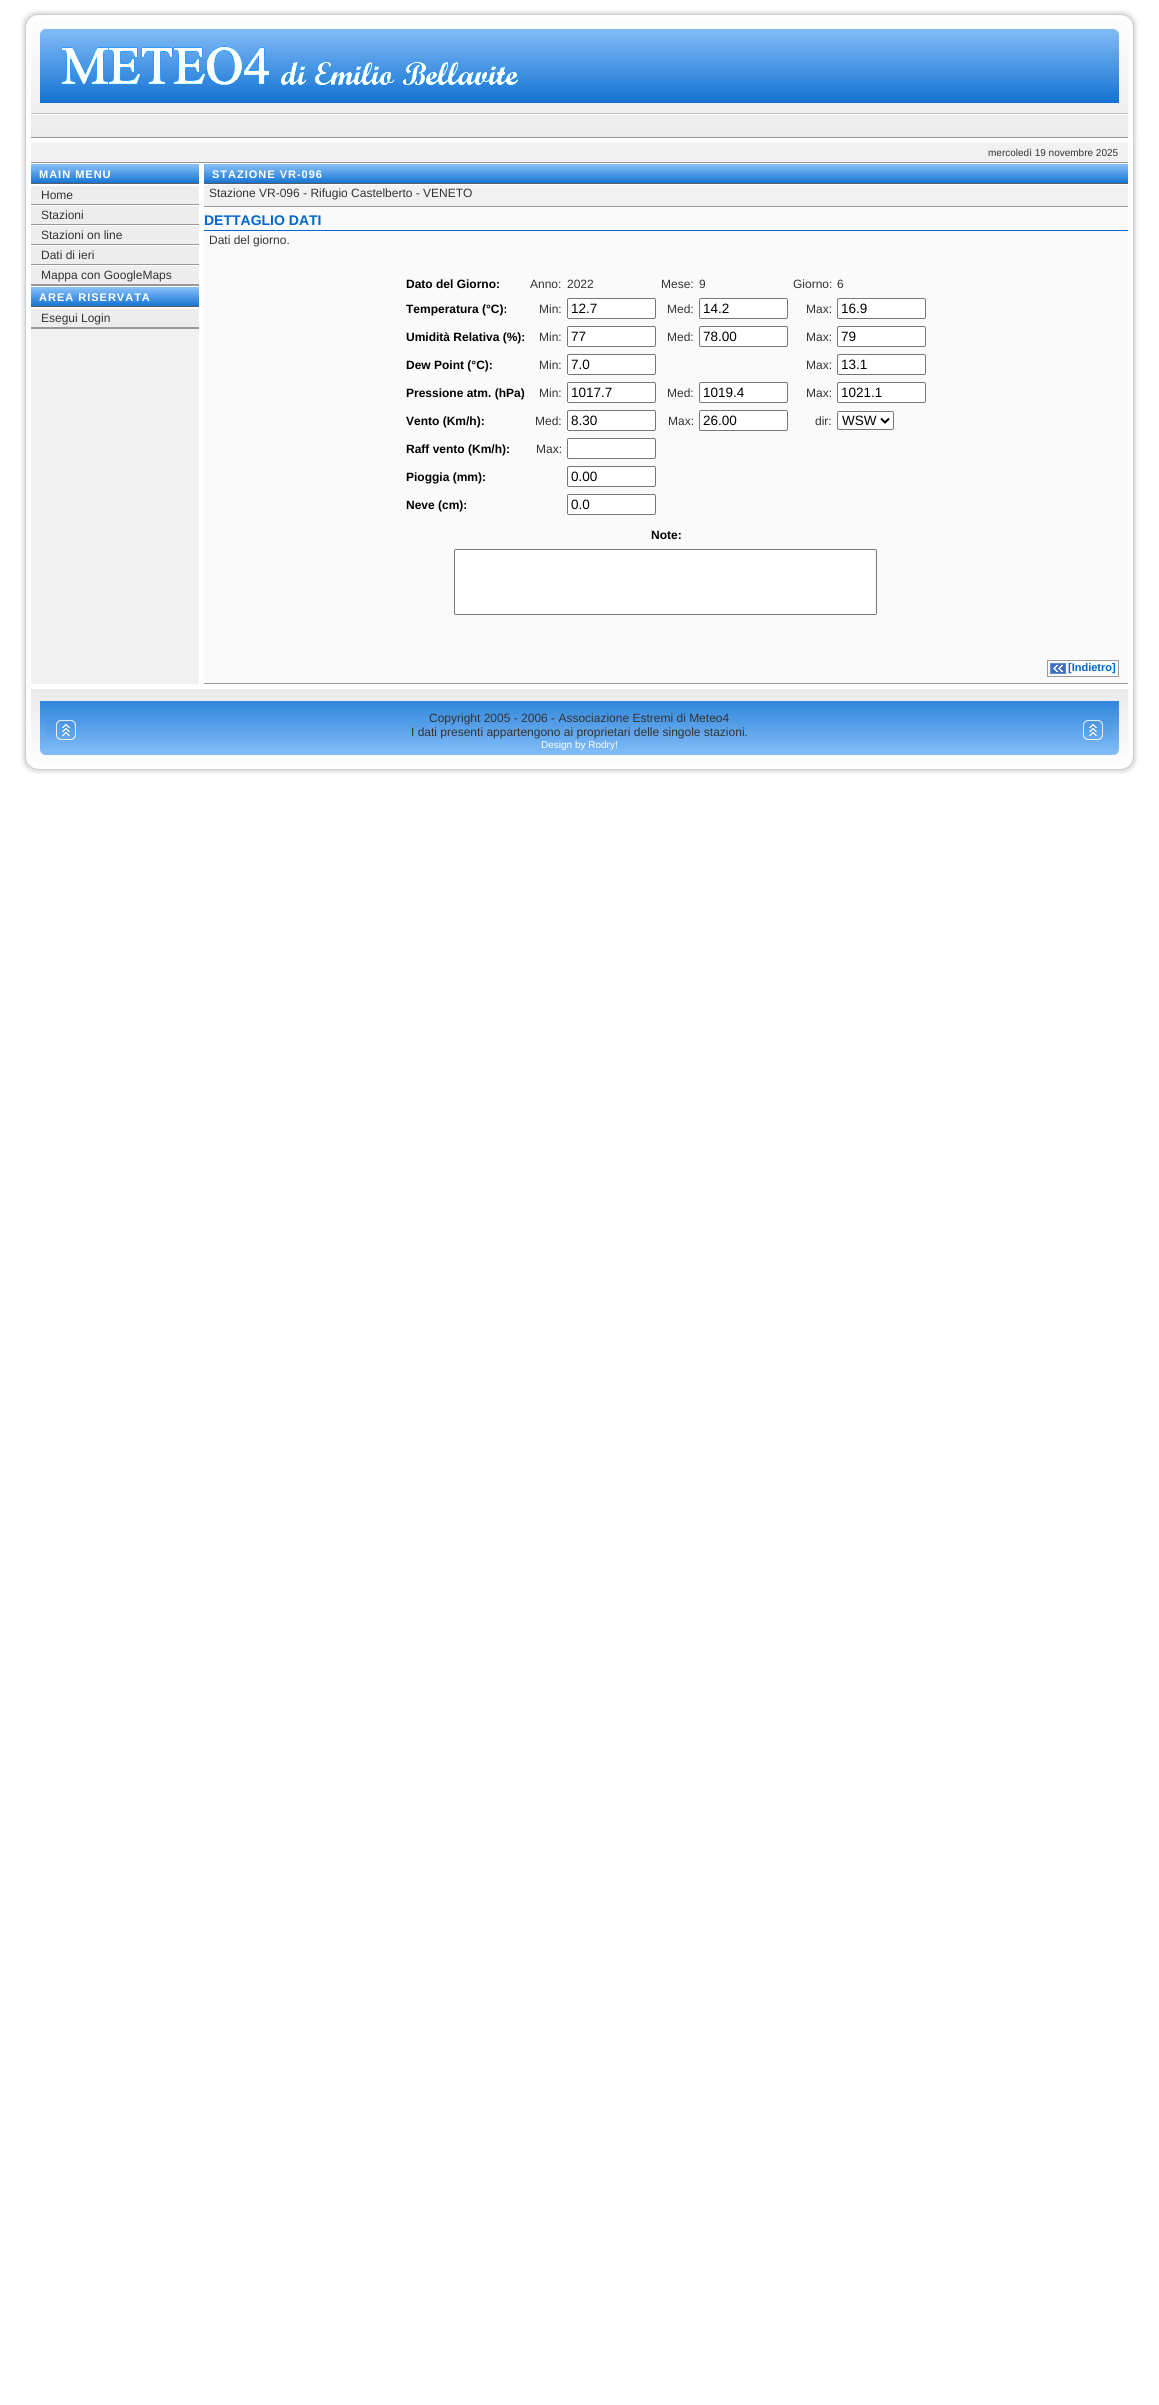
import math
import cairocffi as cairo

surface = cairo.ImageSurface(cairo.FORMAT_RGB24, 1159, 2405)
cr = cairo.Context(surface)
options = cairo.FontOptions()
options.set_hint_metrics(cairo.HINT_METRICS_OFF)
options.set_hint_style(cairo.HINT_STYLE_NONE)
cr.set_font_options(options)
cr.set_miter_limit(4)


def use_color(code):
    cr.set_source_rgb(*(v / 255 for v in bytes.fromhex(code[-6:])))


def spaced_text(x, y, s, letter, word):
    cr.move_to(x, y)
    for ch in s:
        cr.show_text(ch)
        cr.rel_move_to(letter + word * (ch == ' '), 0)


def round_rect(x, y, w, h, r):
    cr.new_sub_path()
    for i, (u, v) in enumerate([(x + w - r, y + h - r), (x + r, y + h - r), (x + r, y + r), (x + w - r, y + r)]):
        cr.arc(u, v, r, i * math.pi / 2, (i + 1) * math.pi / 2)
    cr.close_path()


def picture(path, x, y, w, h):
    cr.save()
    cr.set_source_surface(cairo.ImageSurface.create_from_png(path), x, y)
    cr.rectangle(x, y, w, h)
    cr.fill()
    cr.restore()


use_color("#ffffff")
cr.paint()
picture("img1.png", 45, 10, 1068, 128)
picture("img2.png", 20, 9, 25, 129)
picture("img3.png", 61, 46, 457, 39)
picture("img4.png", 1113, 9, 26, 129)
picture("img5.png", 20, 138, 6, 25)
use_color("#f1f1f1")
cr.rectangle(31, 143, 1097, 19)
cr.fill()
use_color("#999999")
cr.rectangle(31, 162, 1097, 1)
cr.fill()
picture("img6.png", 1133, 138, 6, 25)
cr.select_font_face("Liberation Sans")
cr.set_font_size(10)
use_color("#333333")
cr.move_to(988, 156)
cr.show_text("mercoledì 19 novembre 2025")
picture("img7.png", 20, 163, 6, 521)
use_color("#f1f1f1")
cr.rectangle(31, 329, 168, 355)
cr.fill()
use_color("#999999")
cr.rectangle(31, 284, 168, 2)
cr.fill()
picture("img8.png", 31, 164, 168, 21)
cr.select_font_face("Liberation Sans", cairo.FONT_SLANT_NORMAL, cairo.FONT_WEIGHT_BOLD)
cr.set_font_size(11)
use_color("#ffffff")
spaced_text(39, 178, "MAIN MENU", 1, 0)
use_color("#ededed")
cr.rectangle(31, 186, 168, 18)
cr.fill()
use_color("#999999")
cr.rectangle(31, 204, 168, 1)
cr.fill()
cr.select_font_face("Liberation Sans")
cr.set_font_size(12)
use_color("#333333")
cr.move_to(41, 199)
cr.show_text("Home")
use_color("#ededed")
cr.rectangle(31, 206, 168, 18)
cr.fill()
use_color("#999999")
cr.rectangle(31, 224, 168, 1)
cr.fill()
use_color("#333333")
cr.move_to(41, 219)
cr.show_text("Stazioni")
use_color("#ededed")
cr.rectangle(31, 226, 168, 18)
cr.fill()
use_color("#999999")
cr.rectangle(31, 244, 168, 1)
cr.fill()
use_color("#333333")
cr.move_to(41, 239)
cr.show_text("Stazioni on line")
use_color("#ededed")
cr.rectangle(31, 246, 168, 18)
cr.fill()
use_color("#999999")
cr.rectangle(31, 264, 168, 1)
cr.fill()
use_color("#333333")
cr.move_to(41, 259)
cr.show_text("Dati di ieri")
use_color("#ededed")
cr.rectangle(31, 266, 168, 18)
cr.fill()
use_color("#333333")
cr.move_to(41, 279)
cr.show_text("Mappa con GoogleMaps")
use_color("#999999")
cr.rectangle(31, 327, 168, 2)
cr.fill()
picture("img8.png", 31, 287, 168, 21)
cr.select_font_face("Liberation Sans", cairo.FONT_SLANT_NORMAL, cairo.FONT_WEIGHT_BOLD)
cr.set_font_size(11)
use_color("#ffffff")
spaced_text(39, 301, "AREA RISERVATA", 1, 0)
use_color("#ededed")
cr.rectangle(31, 309, 168, 18)
cr.fill()
cr.select_font_face("Liberation Sans")
cr.set_font_size(12)
use_color("#333333")
cr.move_to(41, 322)
cr.show_text("Esegui Login")
use_color("#fafafa")
cr.rectangle(204, 208, 924, 475)
cr.fill()
use_color("#f1f1f1")
cr.rectangle(204, 185, 924, 21)
cr.fill()
use_color("#999999")
cr.rectangle(204, 206, 924, 1)
cr.fill()
picture("img9.png", 204, 164, 924, 21)
cr.select_font_face("Liberation Sans", cairo.FONT_SLANT_NORMAL, cairo.FONT_WEIGHT_BOLD)
cr.set_font_size(11)
use_color("#ffffff")
spaced_text(212, 178, "STAZIONE VR-096", 1, 0)
cr.select_font_face("Liberation Sans")
cr.set_font_size(12)
use_color("#333333")
cr.move_to(209, 197)
cr.show_text("Stazione VR-096 - Rifugio Castelberto - VENETO")
use_color("#999999")
cr.rectangle(204, 683, 924, 1)
cr.fill()
use_color("#0066cc")
cr.rectangle(204, 230, 924, 1)
cr.fill()
cr.select_font_face("Liberation Sans", cairo.FONT_SLANT_NORMAL, cairo.FONT_WEIGHT_BOLD)
cr.set_font_size(14)
cr.move_to(204, 225)
cr.show_text("DETTAGLIO DATI")
cr.select_font_face("Liberation Sans")
cr.set_font_size(12)
use_color("#333333")
cr.move_to(209, 244)
cr.show_text("Dati del giorno.")
cr.select_font_face("Liberation Sans", cairo.FONT_SLANT_NORMAL, cairo.FONT_WEIGHT_BOLD)
use_color("#000000")
cr.move_to(406, 288)
cr.show_text("Dato del Giorno:")
cr.select_font_face("Liberation Sans")
use_color("#333333")
cr.move_to(530, 288)
cr.show_text("Anno:")
cr.move_to(567, 288)
cr.show_text("2022")
cr.move_to(661, 288)
cr.show_text("Mese:")
cr.move_to(699, 288)
cr.show_text("9")
cr.move_to(793, 288)
cr.show_text("Giorno:")
cr.move_to(837, 288)
cr.show_text("6")
cr.select_font_face("Liberation Sans", cairo.FONT_SLANT_NORMAL, cairo.FONT_WEIGHT_BOLD)
use_color("#000000")
cr.move_to(406, 313)
cr.show_text("Temperatura (°C):")
cr.select_font_face("Liberation Sans")
use_color("#333333")
cr.move_to(539, 313)
cr.show_text("Min:")
use_color("#ffffff")
round_rect(567.5, 298.5, 88, 20, 1.5)
cr.fill_preserve()
use_color("#767676")
cr.set_line_width(1)
cr.stroke()
cr.set_font_size(13.5)
use_color("#000000")
cr.move_to(571, 313)
cr.show_text("12.7")
cr.set_font_size(12)
use_color("#333333")
cr.move_to(667, 313)
cr.show_text("Med:")
use_color("#ffffff")
round_rect(699.5, 298.5, 88, 20, 1.5)
cr.fill_preserve()
use_color("#767676")
cr.stroke()
cr.set_font_size(13.5)
use_color("#000000")
cr.move_to(703, 313)
cr.show_text("14.2")
cr.set_font_size(12)
use_color("#333333")
cr.move_to(806, 313)
cr.show_text("Max:")
use_color("#ffffff")
round_rect(837.5, 298.5, 88, 20, 1.5)
cr.fill_preserve()
use_color("#767676")
cr.stroke()
cr.set_font_size(13.5)
use_color("#000000")
cr.move_to(841, 313)
cr.show_text("16.9")
cr.select_font_face("Liberation Sans", cairo.FONT_SLANT_NORMAL, cairo.FONT_WEIGHT_BOLD)
cr.set_font_size(12)
cr.move_to(406, 341)
cr.show_text("Umidità Relativa (%):")
cr.select_font_face("Liberation Sans")
use_color("#333333")
cr.move_to(539, 341)
cr.show_text("Min:")
use_color("#ffffff")
round_rect(567.5, 326.5, 88, 20, 1.5)
cr.fill_preserve()
use_color("#767676")
cr.stroke()
cr.set_font_size(13.5)
use_color("#000000")
cr.move_to(571, 341)
cr.show_text("77")
cr.set_font_size(12)
use_color("#333333")
cr.move_to(667, 341)
cr.show_text("Med:")
use_color("#ffffff")
round_rect(699.5, 326.5, 88, 20, 1.5)
cr.fill_preserve()
use_color("#767676")
cr.stroke()
cr.set_font_size(13.5)
use_color("#000000")
cr.move_to(703, 341)
cr.show_text("78.00")
cr.set_font_size(12)
use_color("#333333")
cr.move_to(806, 341)
cr.show_text("Max:")
use_color("#ffffff")
round_rect(837.5, 326.5, 88, 20, 1.5)
cr.fill_preserve()
use_color("#767676")
cr.stroke()
cr.set_font_size(13.5)
use_color("#000000")
cr.move_to(841, 341)
cr.show_text("79")
cr.select_font_face("Liberation Sans", cairo.FONT_SLANT_NORMAL, cairo.FONT_WEIGHT_BOLD)
cr.set_font_size(12)
cr.move_to(406, 369)
cr.show_text("Dew Point (°C):")
cr.select_font_face("Liberation Sans")
use_color("#333333")
cr.move_to(539, 369)
cr.show_text("Min:")
use_color("#ffffff")
round_rect(567.5, 354.5, 88, 20, 1.5)
cr.fill_preserve()
use_color("#767676")
cr.stroke()
cr.set_font_size(13.5)
use_color("#000000")
cr.move_to(571, 369)
cr.show_text("7.0")
cr.set_font_size(12)
use_color("#333333")
cr.move_to(806, 369)
cr.show_text("Max:")
use_color("#ffffff")
round_rect(837.5, 354.5, 88, 20, 1.5)
cr.fill_preserve()
use_color("#767676")
cr.stroke()
cr.set_font_size(13.5)
use_color("#000000")
cr.move_to(841, 369)
cr.show_text("13.1")
cr.select_font_face("Liberation Sans", cairo.FONT_SLANT_NORMAL, cairo.FONT_WEIGHT_BOLD)
cr.set_font_size(12)
cr.move_to(406, 397)
cr.show_text("Pressione atm. (hPa)")
cr.select_font_face("Liberation Sans")
use_color("#333333")
cr.move_to(539, 397)
cr.show_text("Min:")
use_color("#ffffff")
round_rect(567.5, 382.5, 88, 20, 1.5)
cr.fill_preserve()
use_color("#767676")
cr.stroke()
cr.set_font_size(13.5)
use_color("#000000")
cr.move_to(571, 397)
cr.show_text("1017.7")
cr.set_font_size(12)
use_color("#333333")
cr.move_to(667, 397)
cr.show_text("Med:")
use_color("#ffffff")
round_rect(699.5, 382.5, 88, 20, 1.5)
cr.fill_preserve()
use_color("#767676")
cr.stroke()
cr.set_font_size(13.5)
use_color("#000000")
cr.move_to(703, 397)
cr.show_text("1019.4")
cr.set_font_size(12)
use_color("#333333")
cr.move_to(806, 397)
cr.show_text("Max:")
use_color("#ffffff")
round_rect(837.5, 382.5, 88, 20, 1.5)
cr.fill_preserve()
use_color("#767676")
cr.stroke()
cr.set_font_size(13.5)
use_color("#000000")
cr.move_to(841, 397)
cr.show_text("1021.1")
cr.select_font_face("Liberation Sans", cairo.FONT_SLANT_NORMAL, cairo.FONT_WEIGHT_BOLD)
cr.set_font_size(12)
cr.move_to(406, 425)
cr.show_text("Vento (Km/h):")
cr.select_font_face("Liberation Sans")
use_color("#333333")
cr.move_to(535, 425)
cr.show_text("Med:")
use_color("#ffffff")
round_rect(567.5, 410.5, 88, 20, 1.5)
cr.fill_preserve()
use_color("#767676")
cr.stroke()
cr.set_font_size(13.5)
use_color("#000000")
cr.move_to(571, 425)
cr.show_text("8.30")
cr.set_font_size(12)
use_color("#333333")
cr.move_to(668, 425)
cr.show_text("Max:")
use_color("#ffffff")
round_rect(699.5, 410.5, 88, 20, 1.5)
cr.fill_preserve()
use_color("#767676")
cr.stroke()
cr.set_font_size(13.5)
use_color("#000000")
cr.move_to(703, 425)
cr.show_text("26.00")
cr.set_font_size(12)
use_color("#333333")
cr.move_to(815, 425)
cr.show_text("dir:")
use_color("#ffffff")
round_rect(837.5, 411.5, 56, 18, 1.5)
cr.fill_preserve()
use_color("#767676")
cr.stroke()
cr.new_path()
cr.move_to(881, 418.5)
cr.line_to(885, 422.5)
cr.line_to(889, 418.5)
use_color("#000000")
cr.set_line_width(2)
cr.stroke()
cr.set_font_size(13.5)
cr.move_to(842, 425)
cr.show_text("WSW")
cr.select_font_face("Liberation Sans", cairo.FONT_SLANT_NORMAL, cairo.FONT_WEIGHT_BOLD)
cr.set_font_size(12)
cr.move_to(406, 453)
cr.show_text("Raff vento (Km/h):")
cr.select_font_face("Liberation Sans")
use_color("#333333")
cr.move_to(536, 453)
cr.show_text("Max:")
use_color("#ffffff")
round_rect(567.5, 438.5, 88, 20, 1.5)
cr.fill_preserve()
use_color("#767676")
cr.set_line_width(1)
cr.stroke()
cr.select_font_face("Liberation Sans", cairo.FONT_SLANT_NORMAL, cairo.FONT_WEIGHT_BOLD)
use_color("#000000")
cr.move_to(406, 481)
cr.show_text("Pioggia (mm):")
use_color("#ffffff")
round_rect(567.5, 466.5, 88, 20, 1.5)
cr.fill_preserve()
use_color("#767676")
cr.stroke()
cr.select_font_face("Liberation Sans")
cr.set_font_size(13.5)
use_color("#000000")
cr.move_to(571, 481)
cr.show_text("0.00")
cr.select_font_face("Liberation Sans", cairo.FONT_SLANT_NORMAL, cairo.FONT_WEIGHT_BOLD)
cr.set_font_size(12)
cr.move_to(406, 509)
cr.show_text("Neve (cm):")
use_color("#ffffff")
round_rect(567.5, 494.5, 88, 20, 1.5)
cr.fill_preserve()
use_color("#767676")
cr.stroke()
cr.select_font_face("Liberation Sans")
cr.set_font_size(13.5)
use_color("#000000")
cr.move_to(571, 509)
cr.show_text("0.0")
cr.select_font_face("Liberation Sans", cairo.FONT_SLANT_NORMAL, cairo.FONT_WEIGHT_BOLD)
cr.set_font_size(12)
cr.move_to(651, 539)
cr.show_text("Note:")
use_color("#ffffff")
round_rect(454.5, 549.5, 422, 65, 1.5)
cr.fill_preserve()
use_color("#767676")
cr.stroke()
picture("img10.png", 1050, 663, 17, 11)
cr.rectangle(1047.5, 660.5, 71, 16)
use_color("#999999")
cr.stroke()
cr.set_font_size(11)
use_color("#0066cc")
cr.move_to(1068, 671)
cr.show_text("[Indietro]")
picture("img11.png", 1133, 163, 6, 521)
picture("img12.png", 44, 689, 1069, 85)
picture("img13.png", 20, 684, 24, 90)
picture("img14.png", 46, 720, 30, 20)
cr.select_font_face("Liberation Sans")
cr.set_font_size(12)
use_color("#333333")
cr.move_to(429, 722)
cr.show_text("Copyright 2005 - 2006 - Associazione Estremi di Meteo4")
cr.move_to(411, 736)
cr.show_text("I dati presenti appartengono ai proprietari delle singole stazioni.")
cr.set_font_size(10)
use_color("#ffffff")
cr.move_to(541, 748)
cr.show_text("Design by Rodry!")
picture("img15.png", 1083, 720, 30, 20)
picture("img16.png", 1113, 684, 26, 90)
surface.write_to_png("result.png")
